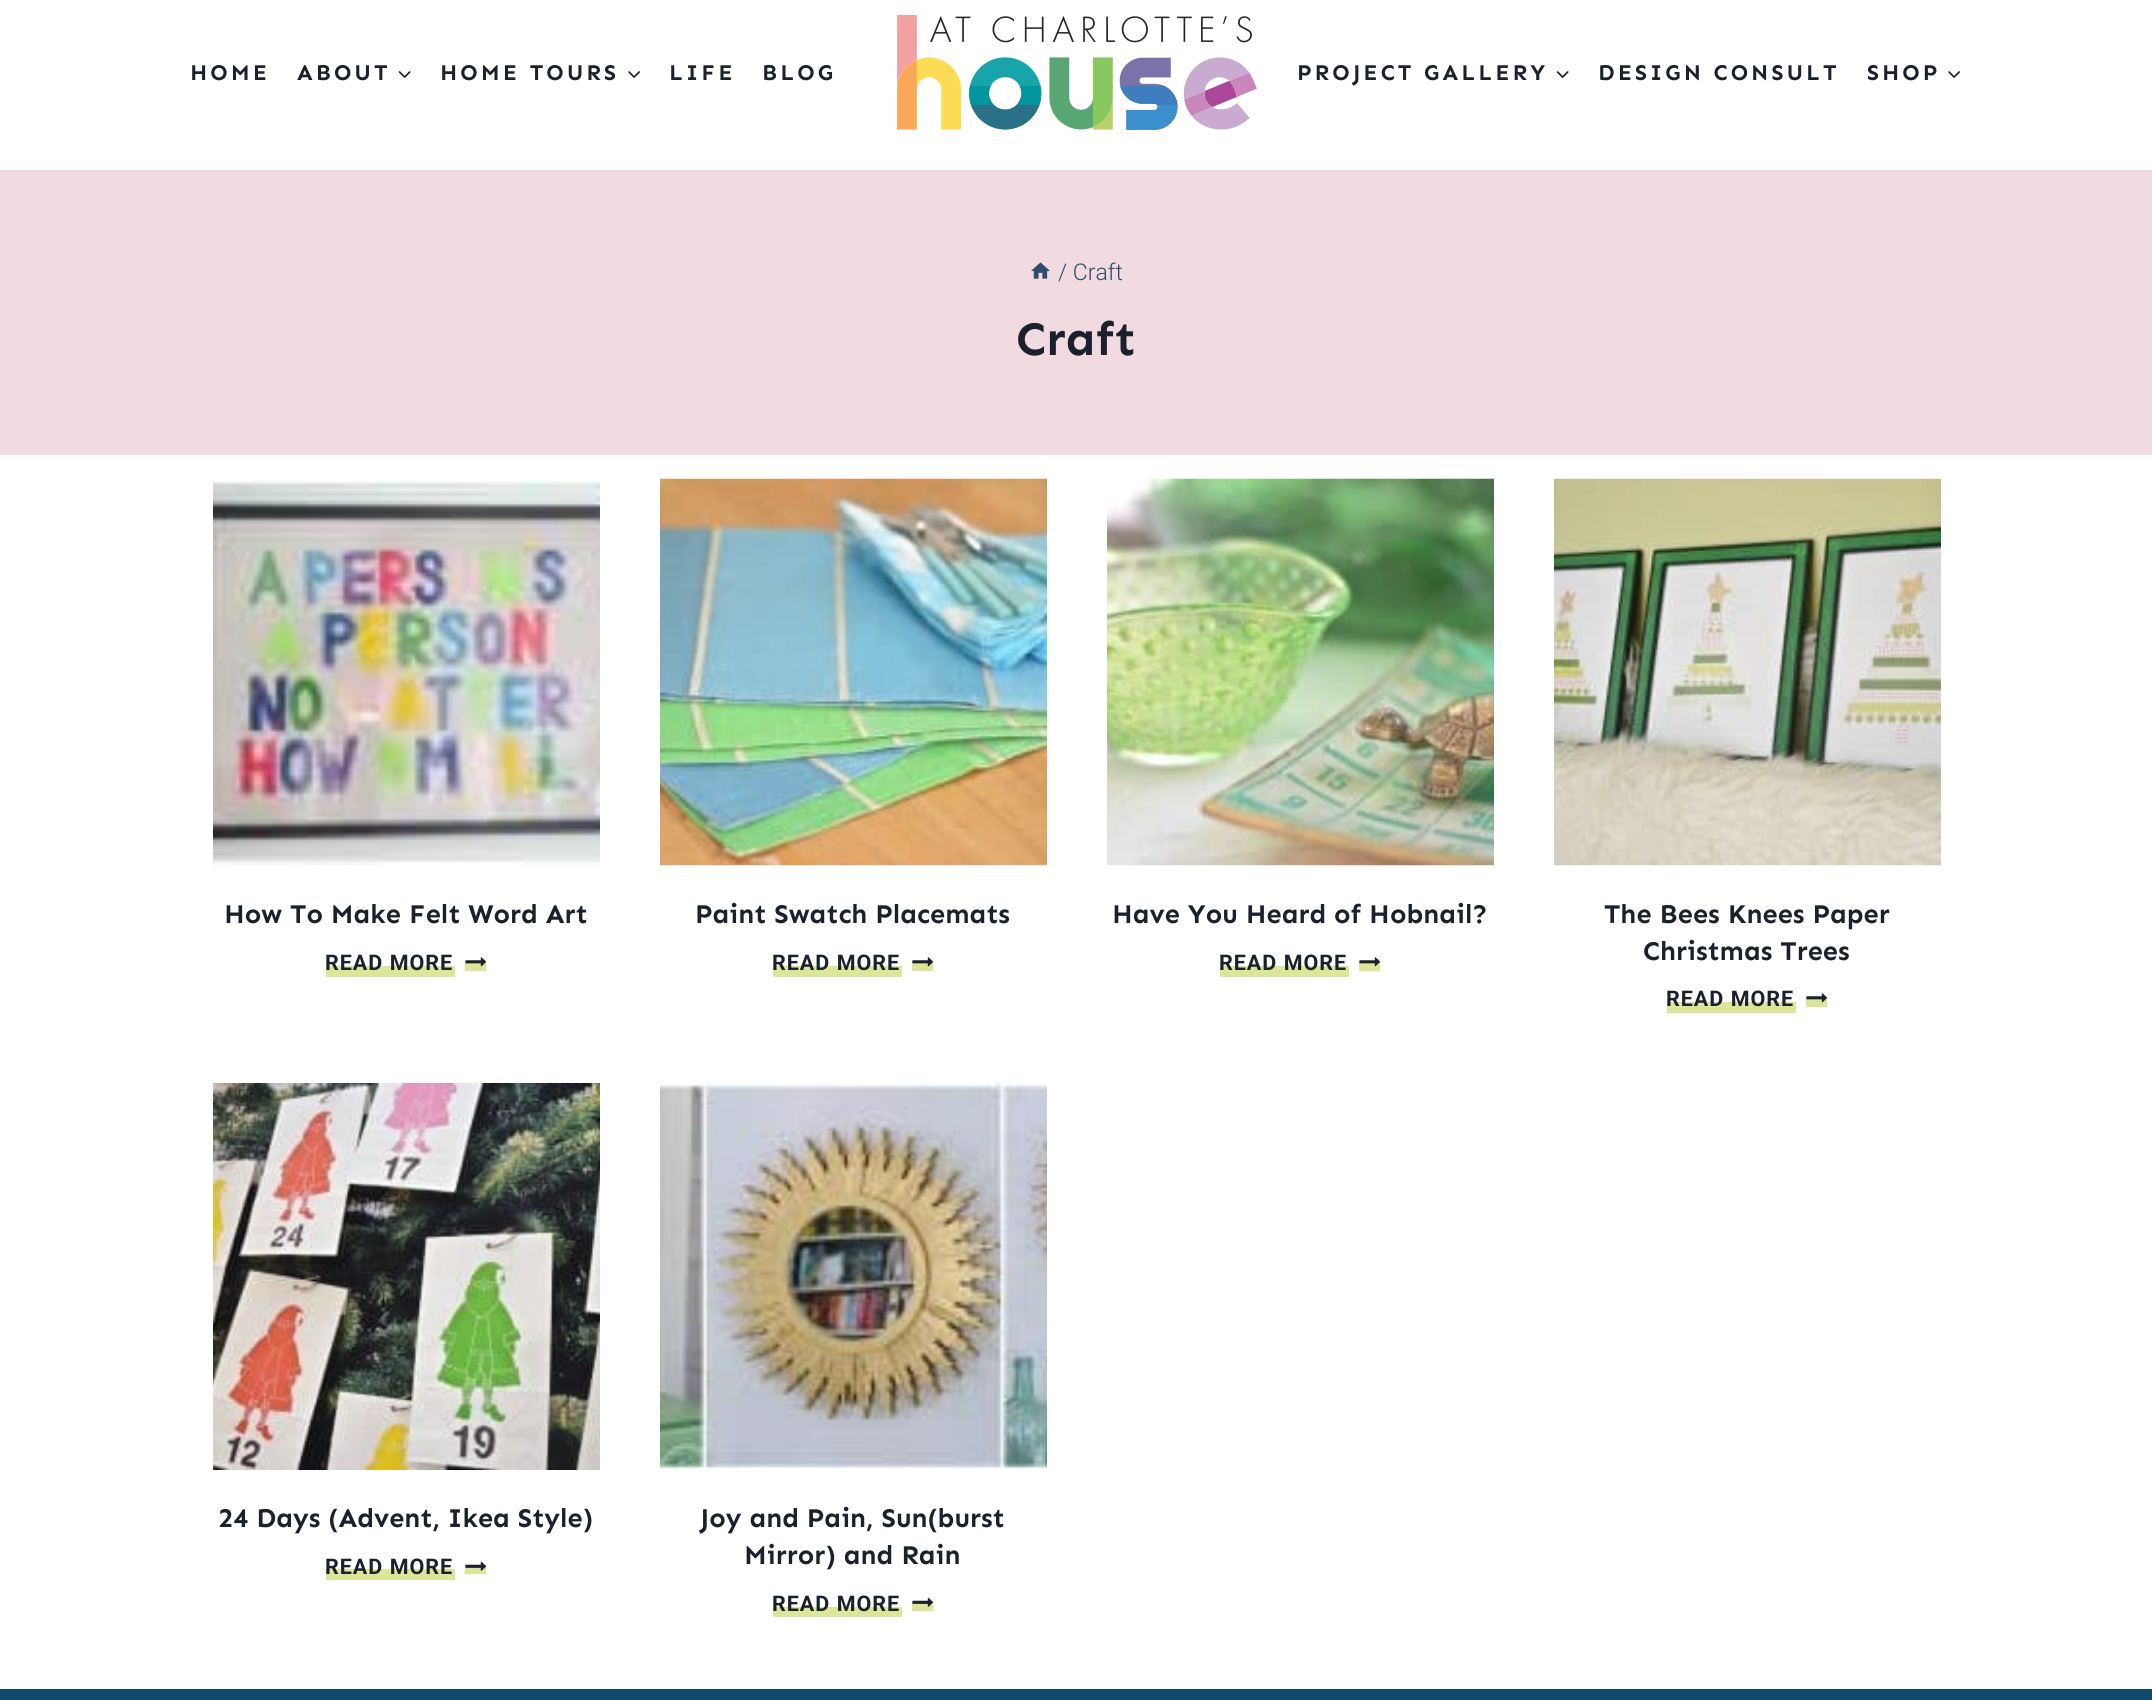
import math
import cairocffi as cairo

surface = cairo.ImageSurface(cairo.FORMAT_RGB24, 2152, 1700)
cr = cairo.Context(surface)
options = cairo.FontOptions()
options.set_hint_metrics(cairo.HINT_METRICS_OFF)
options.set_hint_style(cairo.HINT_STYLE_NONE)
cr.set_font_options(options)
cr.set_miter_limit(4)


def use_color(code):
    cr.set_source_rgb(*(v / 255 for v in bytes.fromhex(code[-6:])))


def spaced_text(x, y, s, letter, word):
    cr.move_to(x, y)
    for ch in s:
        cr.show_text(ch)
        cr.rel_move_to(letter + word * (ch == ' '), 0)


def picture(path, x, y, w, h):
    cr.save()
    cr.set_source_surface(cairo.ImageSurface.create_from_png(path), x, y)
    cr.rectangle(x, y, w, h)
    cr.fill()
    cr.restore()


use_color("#ffffff")
cr.paint()
cr.select_font_face("Sen", cairo.FONT_SLANT_NORMAL, cairo.FONT_WEIGHT_BOLD)
cr.set_font_size(22.5)
use_color("#1a202c")
spaced_text(190, 80, "HOME", 3, 0)
spaced_text(297, 80, "ABOUT", 3, 0)
picture("img1.png", 398, 71, 13, 7)
spaced_text(440, 80, "HOME TOURS", 3, 0)
picture("img2.png", 628, 71, 12, 7)
spaced_text(669, 80, "LIFE", 3, 0)
spaced_text(762, 80, "BLOG", 3, 0)
picture("img3.png", 897, 15, 360, 115)
spaced_text(1297, 80, "PROJECT GALLERY", 3, 0)
picture("img1.png", 1556, 71, 13, 7)
spaced_text(1598, 80, "DESIGN CONSULT", 3, 0)
spaced_text(1867, 80, "SHOP", 3, 0)
picture("img2.png", 1948, 71, 12, 7)
use_color("#f2dae1")
cr.rectangle(0, 170, 2152, 285)
cr.fill()
picture("img4.png", 1031, 262, 19, 17)
cr.select_font_face("Roboto Light")
cr.set_font_size(23)
use_color("#2d4c6e")
cr.move_to(1058, 280)
cr.show_text("/ Craft")
cr.select_font_face("Sen", cairo.FONT_SLANT_NORMAL, cairo.FONT_WEIGHT_BOLD)
cr.set_font_size(48)
use_color("#1a202c")
cr.move_to(1016, 355)
cr.show_text("Craft")
picture("img5.png", 213, 479, 387, 386)
cr.set_font_size(27)
cr.move_to(224, 923)
cr.show_text("How To Make Felt Word Art")
use_color("#dce699")
cr.rectangle(326, 966, 129, 11)
cr.fill()
cr.rectangle(465, 962, 21, 9)
cr.fill()
cr.select_font_face("Roboto", cairo.FONT_SLANT_NORMAL, cairo.FONT_WEIGHT_BOLD)
cr.set_font_size(21.5)
use_color("#1a202c")
spaced_text(325, 970, "READ MORE", 1, 0)
picture("img6.png", 465, 957, 21, 10)
picture("img7.png", 660, 478, 387, 388)
cr.select_font_face("Sen", cairo.FONT_SLANT_NORMAL, cairo.FONT_WEIGHT_BOLD)
cr.set_font_size(27)
cr.move_to(695, 923)
cr.show_text("Paint Swatch Placemats")
use_color("#dce699")
cr.rectangle(773, 966, 129, 11)
cr.fill()
cr.rectangle(912, 962, 21, 9)
cr.fill()
cr.select_font_face("Roboto", cairo.FONT_SLANT_NORMAL, cairo.FONT_WEIGHT_BOLD)
cr.set_font_size(21.5)
use_color("#1a202c")
spaced_text(772, 970, "READ MORE", 1, 0)
picture("img6.png", 912, 957, 21, 10)
picture("img8.png", 1107, 478, 387, 388)
cr.select_font_face("Sen", cairo.FONT_SLANT_NORMAL, cairo.FONT_WEIGHT_BOLD)
cr.set_font_size(27)
cr.move_to(1112, 923)
cr.show_text("Have You Heard of Hobnail?")
use_color("#dce699")
cr.rectangle(1220, 966, 129, 11)
cr.fill()
cr.rectangle(1359, 962, 21, 9)
cr.fill()
cr.select_font_face("Roboto", cairo.FONT_SLANT_NORMAL, cairo.FONT_WEIGHT_BOLD)
cr.set_font_size(21.5)
use_color("#1a202c")
spaced_text(1219, 970, "READ MORE", 1, 0)
picture("img6.png", 1359, 957, 21, 10)
picture("img9.png", 1554, 478, 387, 388)
cr.select_font_face("Sen", cairo.FONT_SLANT_NORMAL, cairo.FONT_WEIGHT_BOLD)
cr.set_font_size(27)
cr.move_to(1604, 923)
cr.show_text("The Bees Knees Paper")
cr.move_to(1643, 960)
cr.show_text("Christmas Trees")
use_color("#dce699")
cr.rectangle(1667, 1002, 129, 11)
cr.fill()
cr.rectangle(1806, 998, 21, 9)
cr.fill()
cr.select_font_face("Roboto", cairo.FONT_SLANT_NORMAL, cairo.FONT_WEIGHT_BOLD)
cr.set_font_size(21.5)
use_color("#1a202c")
spaced_text(1666, 1006, "READ MORE", 1, 0)
picture("img6.png", 1806, 993, 21, 10)
picture("img10.png", 213, 1083, 387, 387)
cr.select_font_face("Sen", cairo.FONT_SLANT_NORMAL, cairo.FONT_WEIGHT_BOLD)
cr.set_font_size(27)
cr.move_to(218, 1527)
cr.show_text("24 Days (Advent, Ikea Style)")
use_color("#dce699")
cr.rectangle(326, 1569, 129, 11)
cr.fill()
cr.rectangle(465, 1565, 21, 9)
cr.fill()
cr.select_font_face("Roboto", cairo.FONT_SLANT_NORMAL, cairo.FONT_WEIGHT_BOLD)
cr.set_font_size(21.5)
use_color("#1a202c")
spaced_text(325, 1574, "READ MORE", 1, 0)
picture("img11.png", 465, 1561, 21, 10)
picture("img12.png", 660, 1083, 387, 387)
cr.select_font_face("Sen", cairo.FONT_SLANT_NORMAL, cairo.FONT_WEIGHT_BOLD)
cr.set_font_size(27)
cr.move_to(700, 1527)
cr.show_text("Joy and Pain, Sun(burst")
cr.move_to(744, 1564)
cr.show_text("Mirror) and Rain")
use_color("#dce699")
cr.rectangle(773, 1607, 129, 10)
cr.fill()
cr.rectangle(912, 1602, 21, 9)
cr.fill()
cr.select_font_face("Roboto", cairo.FONT_SLANT_NORMAL, cairo.FONT_WEIGHT_BOLD)
cr.set_font_size(21.5)
use_color("#1a202c")
spaced_text(772, 1611, "READ MORE", 1, 0)
picture("img13.png", 912, 1597, 21, 10)
use_color("#10496e")
cr.rectangle(0, 1689, 2152, 11)
cr.fill()
surface.write_to_png("result.png")
